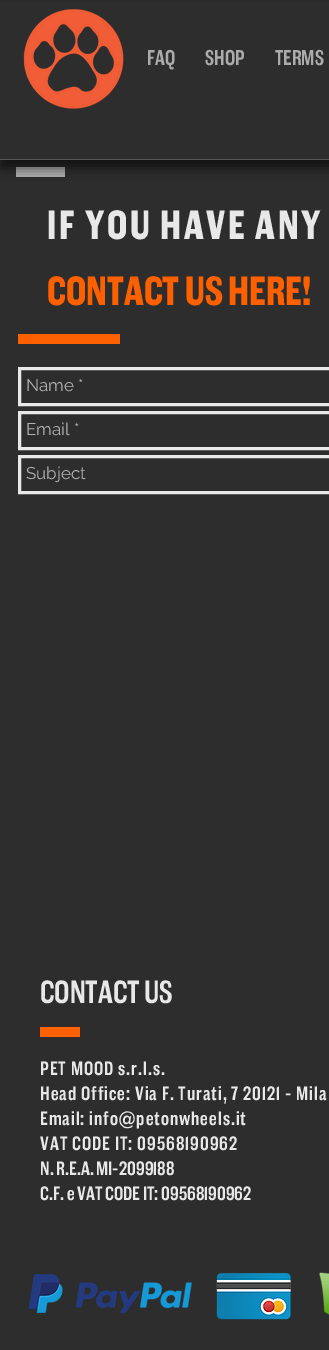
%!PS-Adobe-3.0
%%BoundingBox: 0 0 329 1350
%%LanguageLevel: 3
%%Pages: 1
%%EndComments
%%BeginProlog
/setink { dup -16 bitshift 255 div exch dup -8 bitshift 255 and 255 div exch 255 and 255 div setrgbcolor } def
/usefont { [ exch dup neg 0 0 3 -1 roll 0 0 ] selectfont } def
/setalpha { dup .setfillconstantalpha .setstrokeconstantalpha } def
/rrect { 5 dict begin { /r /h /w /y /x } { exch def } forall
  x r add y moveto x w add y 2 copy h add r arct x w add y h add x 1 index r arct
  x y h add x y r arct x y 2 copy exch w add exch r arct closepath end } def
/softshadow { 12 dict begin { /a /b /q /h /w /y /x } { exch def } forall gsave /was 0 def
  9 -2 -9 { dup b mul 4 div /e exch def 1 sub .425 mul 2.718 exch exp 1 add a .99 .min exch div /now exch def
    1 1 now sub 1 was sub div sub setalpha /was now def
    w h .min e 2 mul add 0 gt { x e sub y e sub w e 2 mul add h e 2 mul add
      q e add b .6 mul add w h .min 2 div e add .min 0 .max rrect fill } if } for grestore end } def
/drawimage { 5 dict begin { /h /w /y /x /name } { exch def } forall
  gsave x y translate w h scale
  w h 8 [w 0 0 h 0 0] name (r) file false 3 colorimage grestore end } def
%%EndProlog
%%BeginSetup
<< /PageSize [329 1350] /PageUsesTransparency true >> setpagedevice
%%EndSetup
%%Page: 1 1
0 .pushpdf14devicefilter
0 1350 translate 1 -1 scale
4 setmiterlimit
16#2D2D2D setink
0 0 329 1350 rectfill
16#ABABAB setink
16 167 49 10 rectfill
16#000000 setink
0 8 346 160 0 5.5 0.6 softshadow
16#2D2D2D setink
0 1 329 158 rectfill
16#575757 setink
0 159 329 1 rectfill
(img1.raw) 23 9 101 100 drawimage
/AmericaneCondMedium-Medium 22 usefont
16#ABABAB setink
[
    [(FAQ) 147 65]
    [(SHOP) 205 65]
    [(TERMS) 275 65]
] { aload pop moveto show } forall
/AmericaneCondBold-Bold 42 usefont
16#E8E8E8 setink
47 239 moveto 2.5 0 (IF YOU HAVE ANY) ashow
16#FC6000 setink
47 305 moveto (CONTACT US HERE!) show
18 334 102 10 rectfill
16#E8E8E8 setink
3 setlinewidth
19.5 368.5 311 36 rectstroke
/Raleway-Regular 17 usefont
16#B1B1B1 setink
26 391 moveto (Name *) show
16#E8E8E8 setink
19.5 412.5 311 36 rectstroke
16#B1B1B1 setink
26 435 moveto (Email *) show
16#E8E8E8 setink
19.5 456.5 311 36 rectstroke
16#B1B1B1 setink
26 479 moveto (Subject) show
/AmericaneCondMedium-Medium 33 usefont
16#E8E8E8 setink
40 1003 moveto (CONTACT US) show
16#FC6000 setink
40 1027 40 10 rectfill
/AmericaneCondMedium-Medium 20 usefont
16#E8E8E8 setink
40 1075 moveto 1 0 (PET MOOD s.r.l.s.) ashow
40 1100 moveto 1 0 (Head Office: Via F. Turati, 7 20121 - Mila) ashow
40 1125 moveto 1 0 (Email: info@petonwheels.it) ashow
40 1150 moveto 1 0 (VAT CODE IT: 09568190962) ashow
40 1175 moveto (N. R.E.A. MI-2099188) show
40 1200 moveto (C.F. e VAT CODE IT: 09568190962) show
(img2.raw) 28 1272 301 48 drawimage
.poppdf14devicefilter showpage
%%EOF
